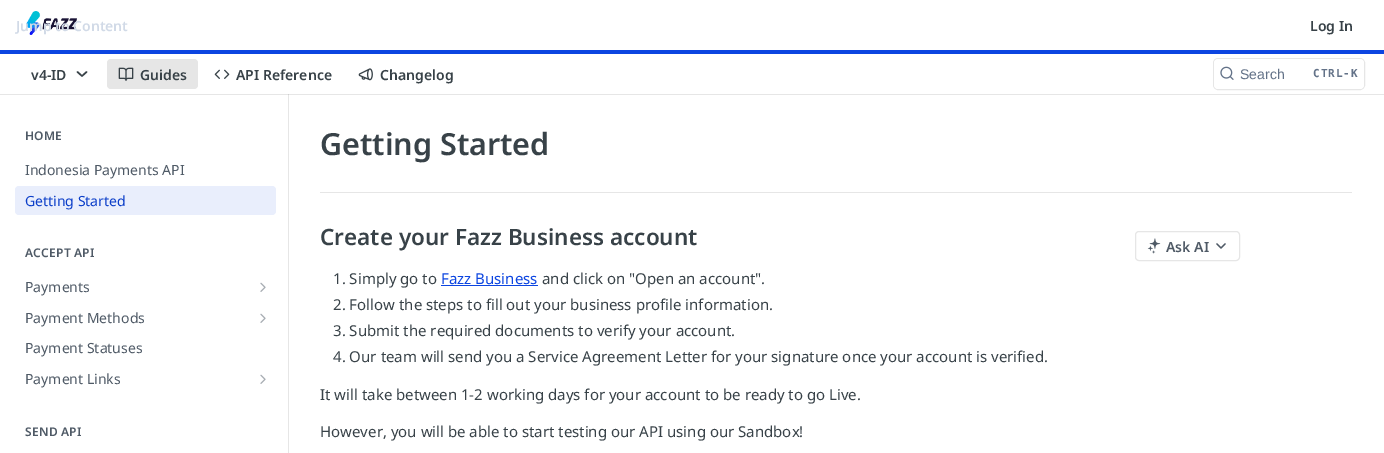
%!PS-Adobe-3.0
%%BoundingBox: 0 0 1384 453
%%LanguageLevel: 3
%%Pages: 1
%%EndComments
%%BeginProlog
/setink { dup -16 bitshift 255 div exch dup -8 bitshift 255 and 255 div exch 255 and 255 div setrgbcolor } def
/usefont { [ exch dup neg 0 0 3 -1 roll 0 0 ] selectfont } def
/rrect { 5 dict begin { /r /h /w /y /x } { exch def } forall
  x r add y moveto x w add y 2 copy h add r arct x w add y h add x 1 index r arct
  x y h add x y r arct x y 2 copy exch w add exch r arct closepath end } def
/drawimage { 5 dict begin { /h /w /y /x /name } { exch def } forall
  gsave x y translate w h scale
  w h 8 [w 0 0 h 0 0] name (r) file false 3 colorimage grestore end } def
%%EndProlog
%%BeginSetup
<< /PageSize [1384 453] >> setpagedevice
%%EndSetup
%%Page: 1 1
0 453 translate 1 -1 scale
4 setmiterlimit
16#FFFFFF setink
0 0 1384 453 rectfill
16#E6E6E6 setink
0 94 1384 1 rectfill
16#0C45E1 setink
0 50 1384 4 rectfill
(img1.raw) 26 11 51 24 drawimage
/NotoSans-SemiBold 14 usefont
16#D1DAE7 setink
16 31 moveto (Jump to Content) show
16#384248 setink
1310 31 moveto (Log In) show
31 80 moveto (v4-ID) show
1.5 setlinewidth
1 setlinecap
1 setlinejoin
77.5 72 moveto 82 76 lineto 86.5 72 lineto stroke
16#E6E6E6 setink
107 59 91 30 4 rrect fill
(img2.raw) 118 67 16 14 drawimage
16#384248 setink
140 80 moveto (Guides) show
(img3.raw) 214 69 16 10 drawimage
236 80 moveto (API Reference) show
(img4.raw) 358 68 15 13 drawimage
380 80 moveto (Changelog) show
16#E6E6E6 setink
1 setlinewidth
0 setlinecap
0 setlinejoin
1213.5 58.5 151 31 4.5 rrect stroke
16#FFFFFF setink
1214 59 150 30 4 rrect fill
(img5.raw) 1220 66 14 14 drawimage
/LiberationSans-Regular 14 usefont
16#637288 setink
1240 79 moveto (Search) show
/DejaVuSansMono-Bold 11 usefont
1313 77 moveto 1 0 (CTRL-K) ashow
16#E6E6E6 setink
288 94 1 359 rectfill
16#CFCFCF setink
288 94 1 1 rectfill
/NotoSans-SemiBold 12 usefont
16#4F5A66 setink
25 140 moveto 0.25 0 (HOME) ashow
/NotoSans-Regular 14 usefont
25 175 moveto (Indonesia Payments API) show
16#E9EEFC setink
15 186 261 29 4 rrect fill
16#0B3EC9 setink
25 206 moveto (Getting Started) show
/NotoSans-SemiBold 12 usefont
16#4F5A66 setink
25 257 moveto 0.25 0 (ACCEPT API) ashow
/NotoSans-Regular 14 usefont
25 292 moveto (Payments) show
(img6.raw) 260 282 6 10 drawimage
25 323 moveto (Payment Methods) show
(img6.raw) 260 313 6 10 drawimage
25 353 moveto (Payment Statuses) show
25 384 moveto (Payment Links) show
(img6.raw) 260 374 6 10 drawimage
/NotoSans-SemiBold 12 usefont
25 436 moveto 0.25 0 (SEND API) ashow
16#E6E6E6 setink
320 192 1032 1 rectfill
/NotoSans-SemiBold 30.5 usefont
16#384248 setink
320 155 moveto (Getting Started) show
/NotoSans-SemiBold 22.5 usefont
320 245 moveto (Create your Fazz Business account) show
/NotoSans-Regular 15 usefont
333 284 moveto (1. Simply go to) show
16#0C45E1 setink
441 284 moveto (Fazz Business) show
441 285 97 1 rectfill
16#384248 setink
[
    [(and click on "Open an account".) 542 284]
    [(2. Follow the steps to fill out your business profile information.) 333 310]
    [(3. Submit the required documents to verify your account.) 333 336]
    [(4. Our team will send you a Service Agreement Letter for your signature once your account is verified.) 333 362]
    [(It will take between 1-2 working days for your account to be ready to go Live.) 320 400]
    [(However, you will be able to start testing our API using our Sandbox!) 320 437]
] { aload pop moveto show } forall
16#E6E6E6 setink
1135.5 231.5 104 29 3.5 rrect stroke
(img7.raw) 1147 238 14 16 drawimage
/NotoSans-SemiBold 14 usefont
16#4F5A66 setink
1166 252 moveto (Ask AI) show
1.3 setlinewidth
1 setlinecap
1 setlinejoin
1217 244 moveto 1221 248 lineto 1225 244 lineto stroke
showpage
%%EOF
